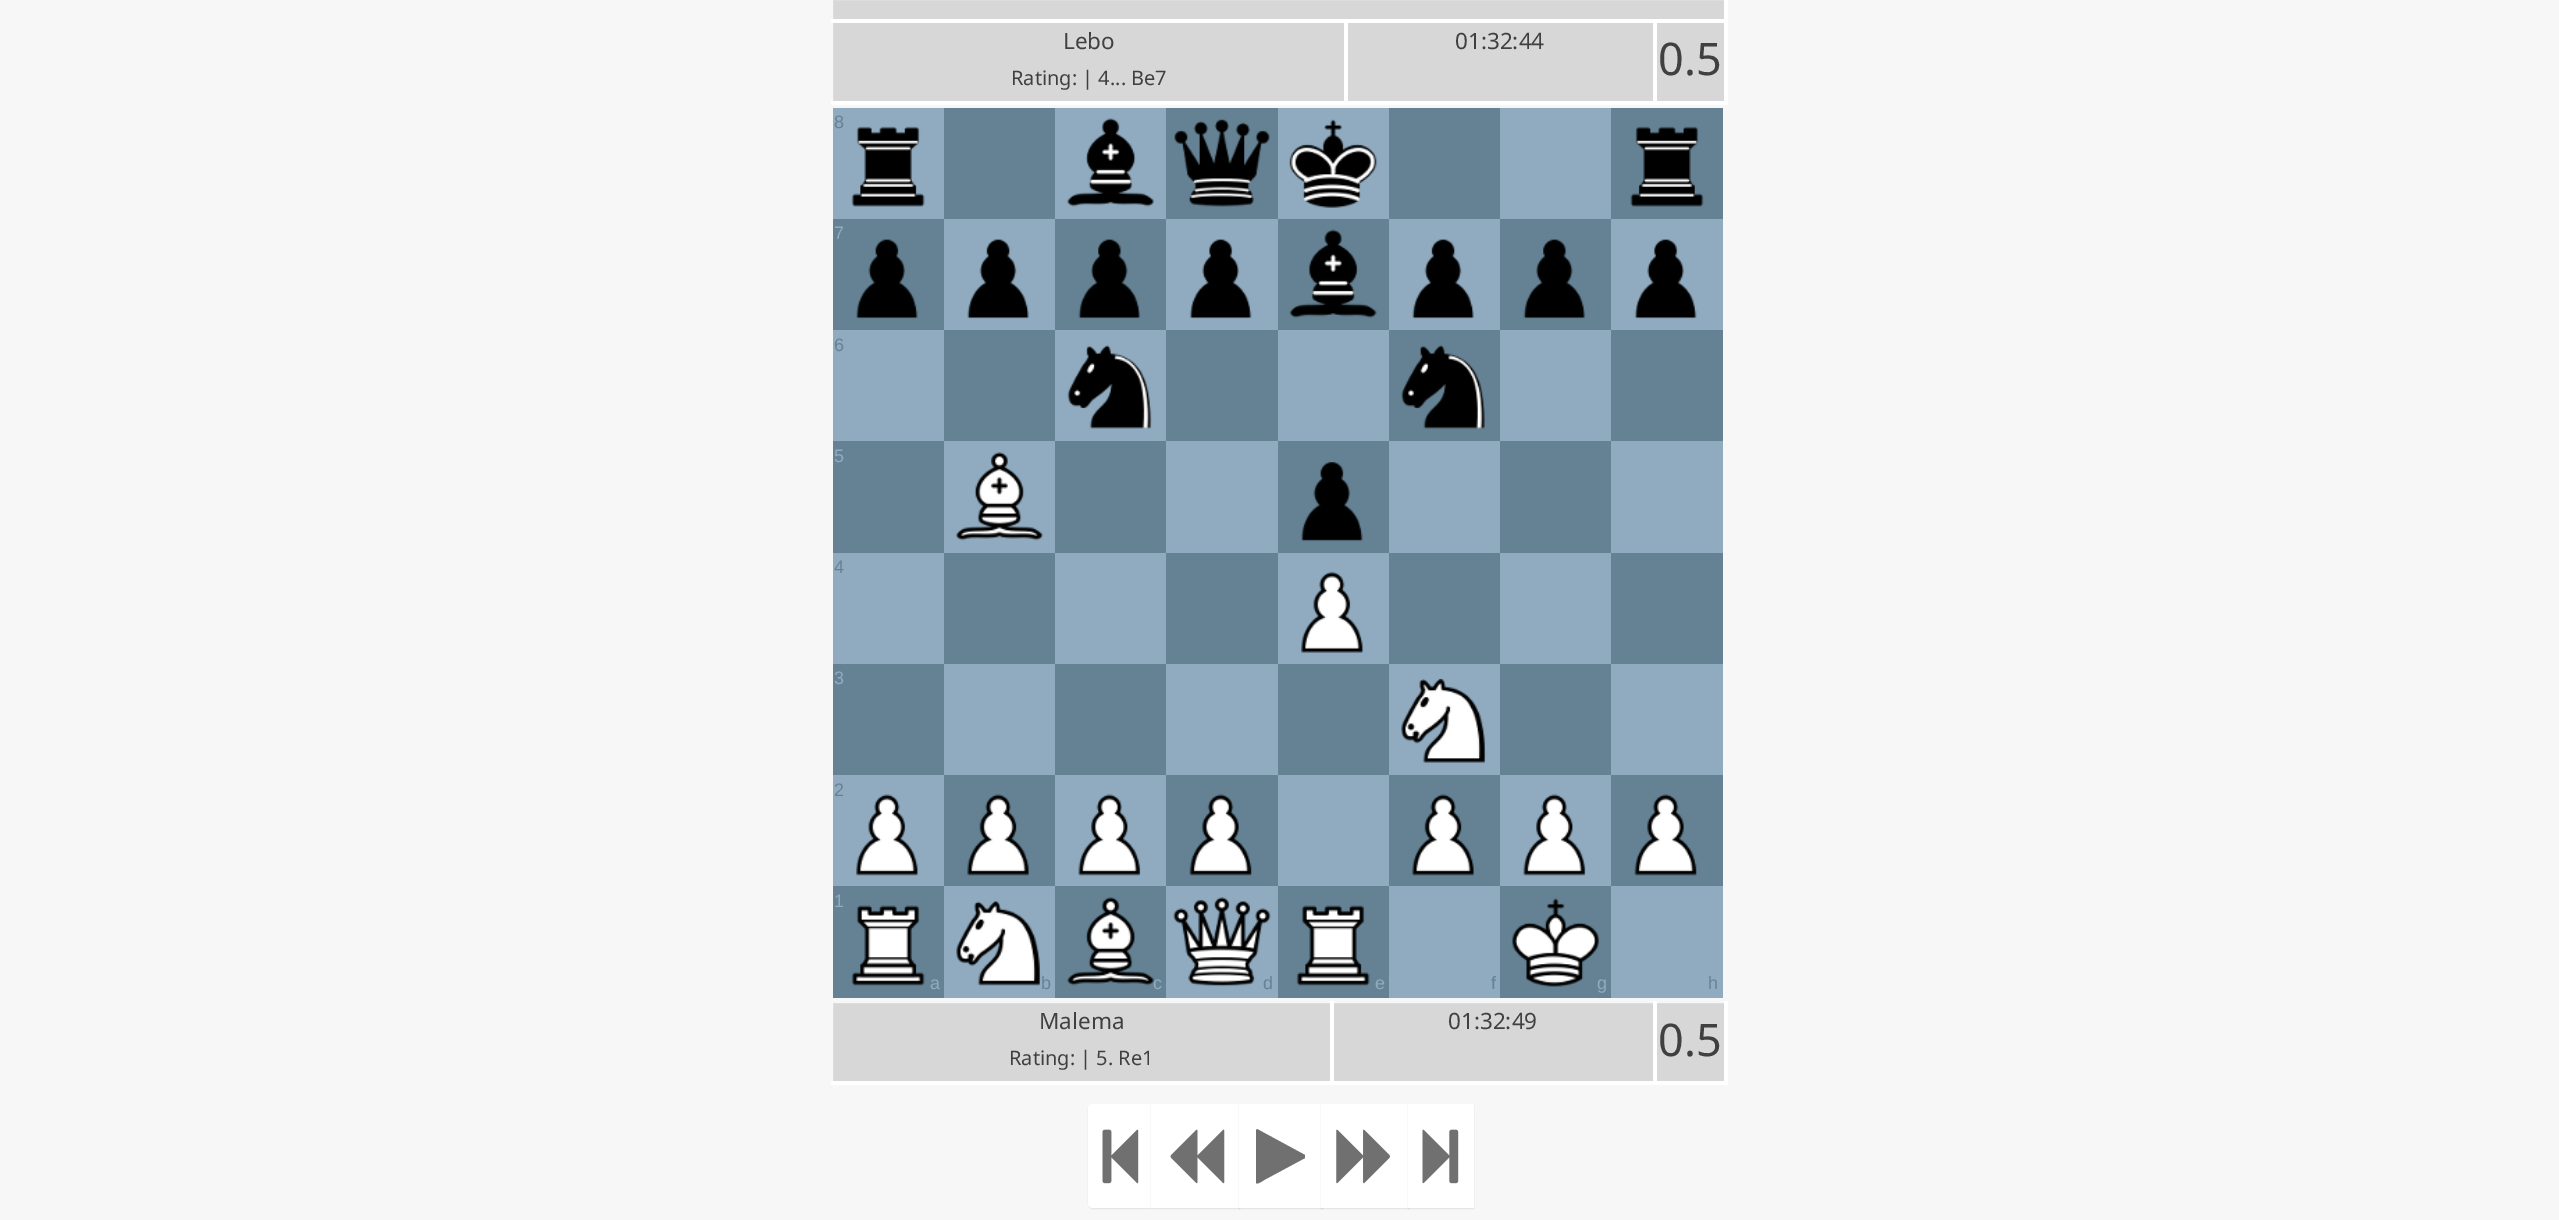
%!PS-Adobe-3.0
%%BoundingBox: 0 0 2559 1220
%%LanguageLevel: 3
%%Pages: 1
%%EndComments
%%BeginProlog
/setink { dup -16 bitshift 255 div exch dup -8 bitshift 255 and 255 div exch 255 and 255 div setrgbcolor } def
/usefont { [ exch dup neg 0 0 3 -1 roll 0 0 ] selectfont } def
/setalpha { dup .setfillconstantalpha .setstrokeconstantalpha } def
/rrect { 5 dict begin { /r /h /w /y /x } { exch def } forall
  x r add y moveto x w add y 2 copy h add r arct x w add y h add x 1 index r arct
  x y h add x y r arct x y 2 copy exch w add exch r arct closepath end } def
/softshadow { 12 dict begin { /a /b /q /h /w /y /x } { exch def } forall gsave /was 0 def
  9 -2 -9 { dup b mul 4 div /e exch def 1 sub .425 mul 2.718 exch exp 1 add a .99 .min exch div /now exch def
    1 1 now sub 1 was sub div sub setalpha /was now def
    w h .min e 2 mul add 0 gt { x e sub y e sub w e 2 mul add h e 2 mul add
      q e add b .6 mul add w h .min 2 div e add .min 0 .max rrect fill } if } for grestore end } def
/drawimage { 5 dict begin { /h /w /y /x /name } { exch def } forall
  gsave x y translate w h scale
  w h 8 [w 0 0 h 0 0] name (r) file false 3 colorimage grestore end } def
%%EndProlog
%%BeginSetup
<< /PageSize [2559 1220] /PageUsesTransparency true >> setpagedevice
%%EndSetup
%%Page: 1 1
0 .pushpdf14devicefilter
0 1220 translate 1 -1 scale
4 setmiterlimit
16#F7F7F7 setink
0 0 2559 1220 rectfill
[
    [834 1 890 100 16#D7D7D7]
    [833 0 895 1 16#DDDDDD]
    [833 0 1 105 16#DDDDDD]
    [1724 0 4 105 16#FFFFFF]
    [1653 101 75 4 16#FFFFFF]
    [1653 19 4 86 16#FFFFFF]
    [1344 101 312 4 16#FFFFFF]
    [1344 19 4 86 16#FFFFFF]
    [831 19 897 4 16#FFFFFF]
    [831 101 517 4 16#FFFFFF]
] { aload pop setink rectfill } forall
/NotoSans-Regular 22.5 usefont
16#404040 setink
1063 49 moveto (Lebo) show
/NotoSans-Regular 20 usefont
1011 85 moveto (Rating: | 4... Be7) show
/NotoSans-Regular 22.5 usefont
1455 49 moveto (01:32:44) show
/NotoSans-Regular 45 usefont
1658 75 moveto (0.5) show
16#90ABC0 setink
833 108 111 111 rectfill
/LiberationSans-Regular 18 usefont
16#658294 setink
834 128 moveto (8) show
(img1.raw) 851 126 74 81 drawimage
944 108 111 111 rectfill
16#90ABC0 setink
1055 108 111 111 rectfill
(img2.raw) 1067 118 87 89 drawimage
16#658294 setink
1166 108 112 111 rectfill
(img3.raw) 1174 119 96 88 drawimage
16#90ABC0 setink
1278 108 111 111 rectfill
(img4.raw) 1289 119 89 89 drawimage
[
    [1389 108 111 111 16#658294]
    [1500 108 111 111 16#90ABC0]
    [1611 108 112 111 16#658294]
] { aload pop setink rectfill } forall
(img5.raw) 1630 126 74 81 drawimage
833 219 111 111 rectfill
16#90ABC0 setink
834 239 moveto (7) show
(img6.raw) 856 239 62 80 drawimage
944 219 111 111 rectfill
(img7.raw) 967 239 62 80 drawimage
16#658294 setink
1055 219 111 111 rectfill
(img8.raw) 1078 239 63 80 drawimage
16#90ABC0 setink
1166 219 112 111 rectfill
(img9.raw) 1189 239 63 80 drawimage
16#658294 setink
1278 219 111 111 rectfill
(img10.raw) 1289 229 88 89 drawimage
16#90ABC0 setink
1389 219 111 111 rectfill
(img7.raw) 1412 239 62 80 drawimage
16#658294 setink
1500 219 111 111 rectfill
(img11.raw) 1523 239 63 80 drawimage
16#90ABC0 setink
1611 219 112 111 rectfill
(img9.raw) 1634 239 63 80 drawimage
833 330 111 111 rectfill
16#658294 setink
834 351 moveto (6) show
944 330 111 111 rectfill
16#90ABC0 setink
1055 330 111 111 rectfill
(img12.raw) 1067 345 85 84 drawimage
[
    [1166 330 112 111 16#658294]
    [1278 330 111 111 16#90ABC0]
    [1389 330 111 111 16#658294]
] { aload pop setink rectfill } forall
(img13.raw) 1401 345 84 84 drawimage
[
    [1500 330 111 111 16#90ABC0]
    [1611 330 112 111 16#658294]
    [833 441 111 112 16#658294]
] { aload pop setink rectfill } forall
16#90ABC0 setink
834 462 moveto (5) show
944 441 111 112 rectfill
(img14.raw) 956 452 87 89 drawimage
[
    [1055 441 111 112 16#658294]
    [1166 441 112 112 16#90ABC0]
    [1278 441 111 112 16#658294]
] { aload pop setink rectfill } forall
(img15.raw) 1301 462 62 80 drawimage
[
    [1389 441 111 112 16#90ABC0]
    [1500 441 111 112 16#658294]
    [1611 441 112 112 16#90ABC0]
    [833 553 111 111 16#90ABC0]
] { aload pop setink rectfill } forall
16#658294 setink
834 573 moveto (4) show
[
    [944 553 111 111 16#658294]
    [1055 553 111 111 16#90ABC0]
    [1166 553 112 111 16#658294]
    [1278 553 111 111 16#90ABC0]
] { aload pop setink rectfill } forall
(img16.raw) 1301 571 62 82 drawimage
[
    [1389 553 111 111 16#658294]
    [1500 553 111 111 16#90ABC0]
    [1611 553 112 111 16#658294]
    [833 664 111 111 16#658294]
] { aload pop setink rectfill } forall
16#90ABC0 setink
834 684 moveto (3) show
[
    [944 664 111 111 16#90ABC0]
    [1055 664 111 111 16#658294]
    [1166 664 112 111 16#90ABC0]
    [1278 664 111 111 16#658294]
    [1389 664 111 111 16#90ABC0]
] { aload pop setink rectfill } forall
(img17.raw) 1401 678 85 85 drawimage
[
    [1500 664 111 111 16#658294]
    [1611 664 112 111 16#90ABC0]
    [833 775 111 111 16#90ABC0]
] { aload pop setink rectfill } forall
16#658294 setink
834 796 moveto (2) show
(img18.raw) 856 794 62 82 drawimage
944 775 111 111 rectfill
(img19.raw) 967 794 62 82 drawimage
16#90ABC0 setink
1055 775 111 111 rectfill
(img20.raw) 1078 794 63 82 drawimage
16#658294 setink
1166 775 112 111 rectfill
(img21.raw) 1189 794 63 82 drawimage
16#90ABC0 setink
1278 775 111 111 rectfill
16#658294 setink
1389 775 111 111 rectfill
(img19.raw) 1412 794 62 82 drawimage
16#90ABC0 setink
1500 775 111 111 rectfill
(img22.raw) 1523 794 63 82 drawimage
16#658294 setink
1611 775 112 111 rectfill
(img21.raw) 1634 794 63 82 drawimage
833 886 111 112 rectfill
16#90ABC0 setink
834 907 moveto (1) show
(img23.raw) 851 905 74 81 drawimage
930 989 moveto (a) show
944 886 111 112 rectfill
(img24.raw) 956 901 85 85 drawimage
16#658294 setink
1041 989 moveto (b) show
1055 886 111 112 rectfill
(img25.raw) 1067 897 87 89 drawimage
16#90ABC0 setink
1153 989 moveto (c) show
1166 886 112 112 rectfill
(img26.raw) 1173 897 98 90 drawimage
16#658294 setink
1263 989 moveto (d) show
1278 886 111 112 rectfill
(img23.raw) 1296 905 74 81 drawimage
16#90ABC0 setink
1375 989 moveto (e) show
1389 886 111 112 rectfill
16#658294 setink
1491 989 moveto (f) show
1500 886 111 112 rectfill
(img27.raw) 1511 898 89 89 drawimage
16#90ABC0 setink
1597 989 moveto (g) show
1611 886 112 112 rectfill
16#658294 setink
1708 989 moveto (h) show
[
    [834 1004 890 77 16#D7D7D7]
    [833 1003 895 1 16#DDDDDD]
    [833 1003 1 82 16#DDDDDD]
    [1724 1001 4 84 16#FFFFFF]
    [1653 1081 75 4 16#FFFFFF]
    [1653 1001 4 84 16#FFFFFF]
    [1330 1081 326 4 16#FFFFFF]
    [1330 1001 4 84 16#FFFFFF]
    [831 1081 503 4 16#FFFFFF]
] { aload pop setink rectfill } forall
/NotoSans-Regular 22.5 usefont
16#404040 setink
1039 1029 moveto (Malema) show
/NotoSans-Regular 20 usefont
1009 1065 moveto (Rating: | 5. Re1) show
/NotoSans-Regular 22.5 usefont
1448 1029 moveto (01:32:49) show
/NotoSans-Regular 45 usefont
1658 1056 moveto (0.5) show
16#000000 setink
1088 1105 65 104 5 0.5 0.07 softshadow
16#FFFFFF setink
1093 1104 moveto 1153 1104 lineto 1153 1208 lineto 1093 1208 lineto 1090 1208 1088 1206 1088 1203 curveto 1088 1109 lineto 1088 1106 1090 1104 1093 1104 curveto closepath fill
(img28.raw) 1102 1129 37 55 drawimage
16#000000 setink
1151 1105 89 104 0 0.5 0.07 softshadow
16#FFFFFF setink
1151 1104 88 104 rectfill
(img29.raw) 1170 1129 55 55 drawimage
16#000000 setink
1239 1105 84 104 0 0.5 0.07 softshadow
16#FFFFFF setink
1239 1104 82 104 rectfill
16#707070 setink
1305 1158 moveto 1266 1179 lineto 1265 1179 1258 1185 1256 1183 curveto 1256 1130 lineto 1257 1129 lineto 1305 1155 lineto 1305 1156 lineto closepath fill
16#000000 setink
1321 1105 88 104 0 0.5 0.07 softshadow
16#FFFFFF setink
1321 1104 87 104 rectfill
(img30.raw) 1336 1129 54 55 drawimage
16#000000 setink
1408 1105 66 104 0 0.5 0.07 softshadow
16#FFFFFF setink
1408 1104 66 104 rectfill
(img31.raw) 1422 1129 37 55 drawimage
.poppdf14devicefilter showpage
%%EOF
